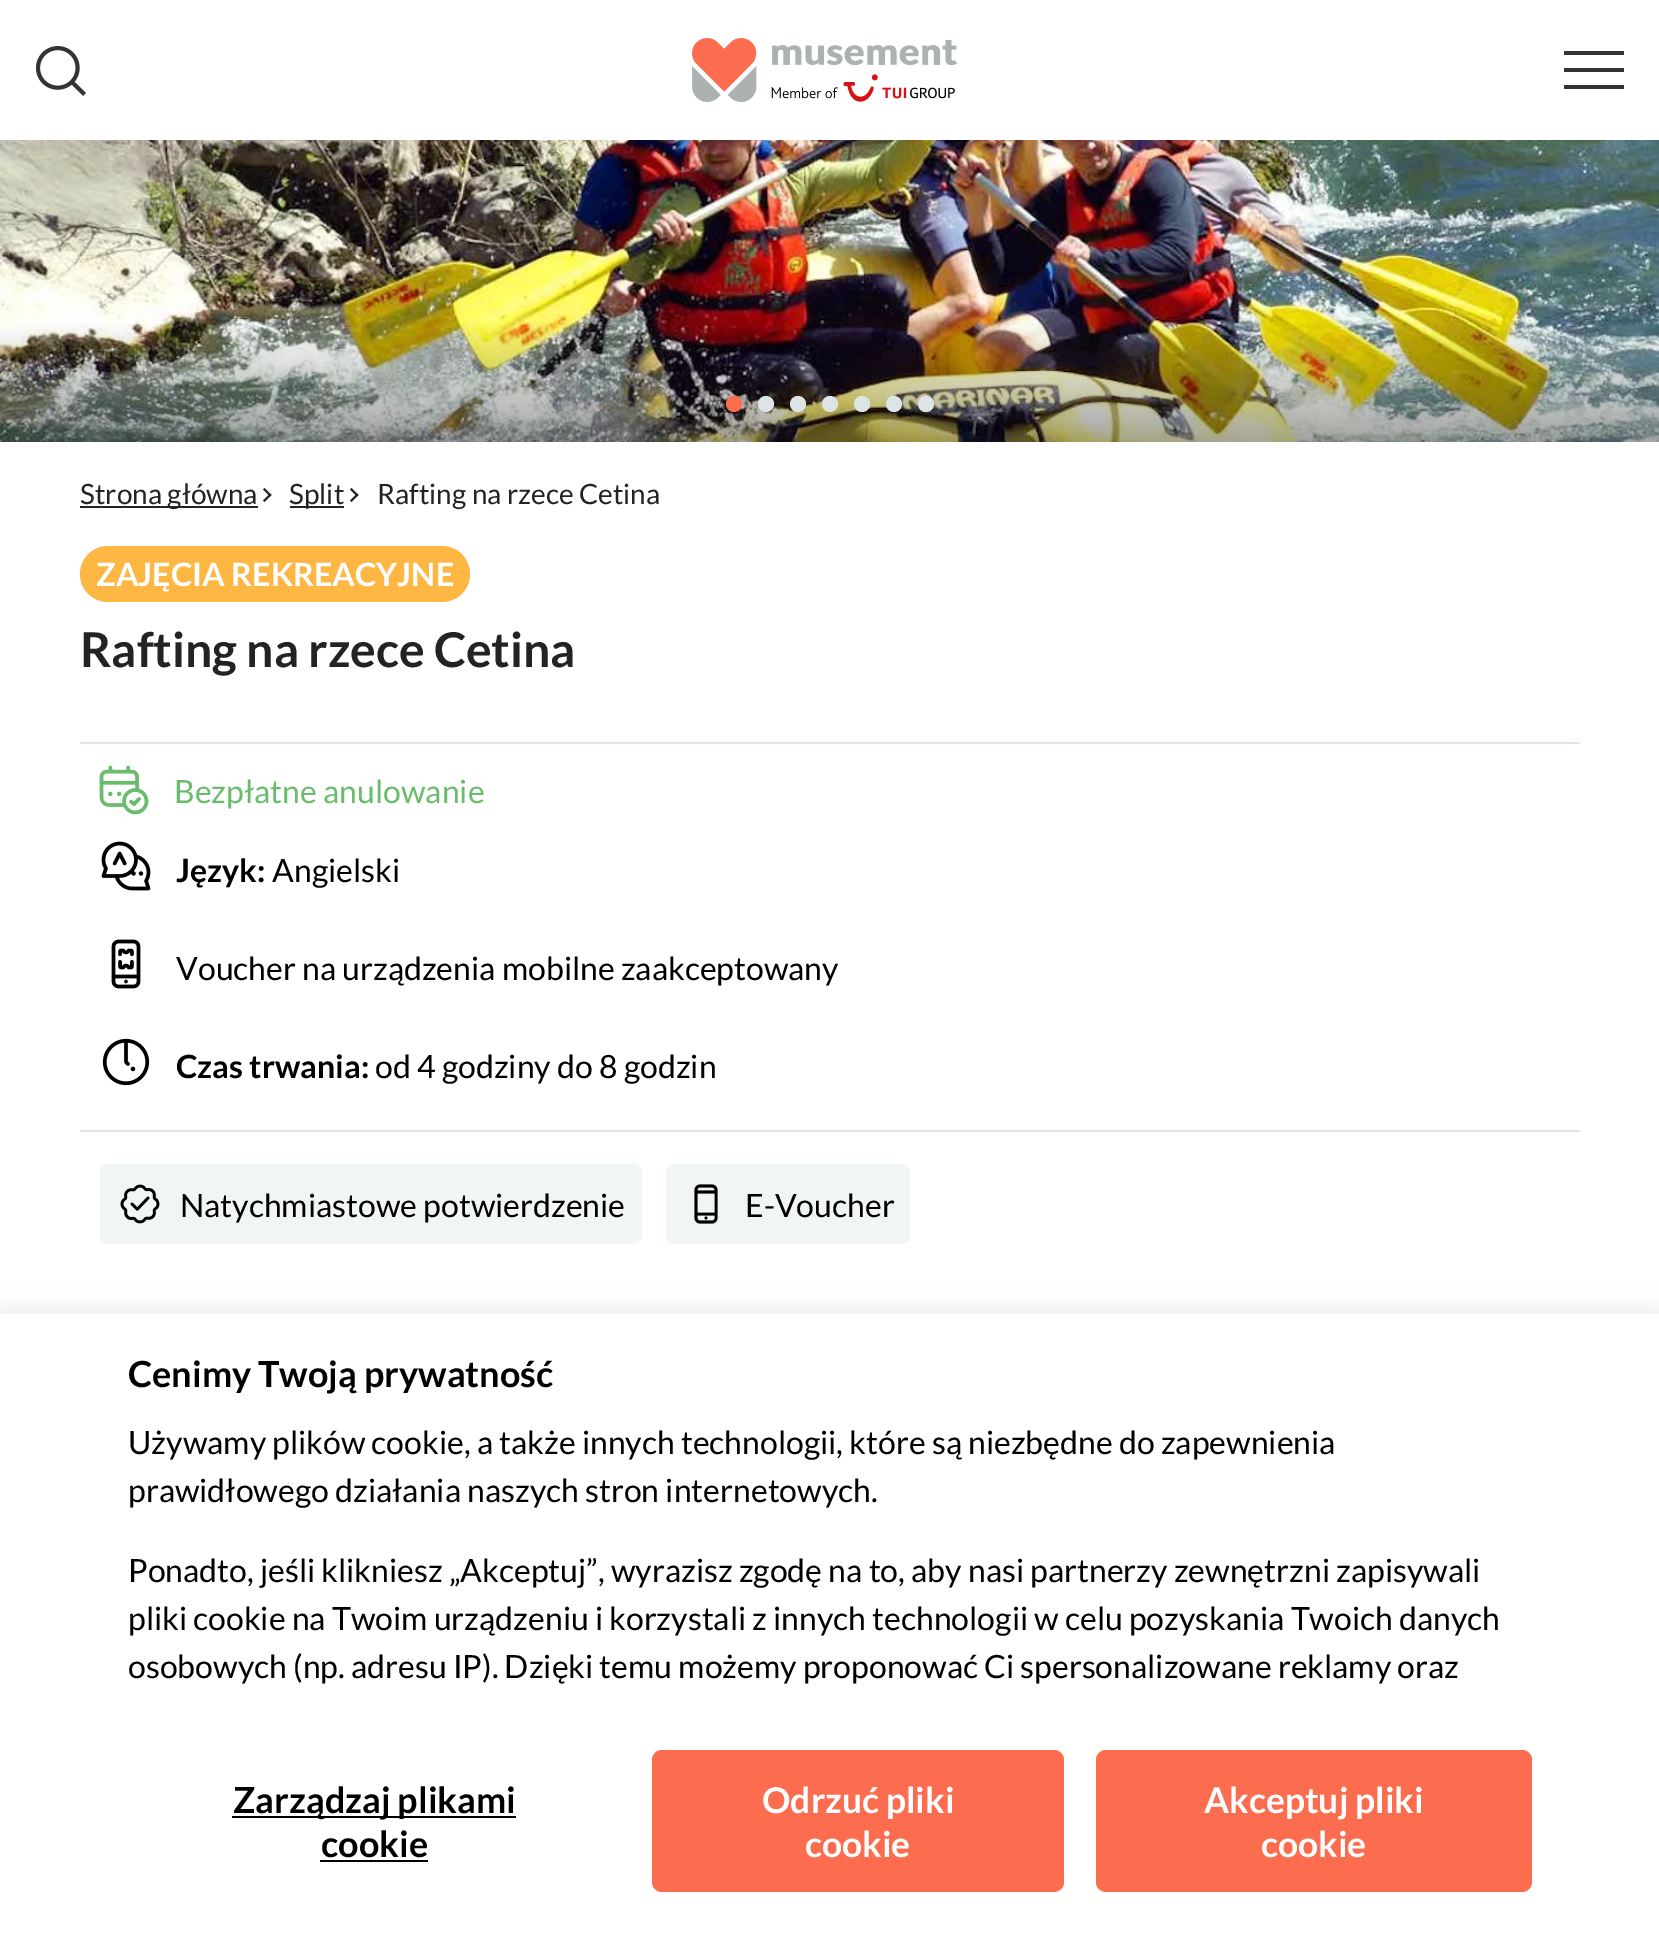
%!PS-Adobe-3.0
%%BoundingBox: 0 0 1659 1939
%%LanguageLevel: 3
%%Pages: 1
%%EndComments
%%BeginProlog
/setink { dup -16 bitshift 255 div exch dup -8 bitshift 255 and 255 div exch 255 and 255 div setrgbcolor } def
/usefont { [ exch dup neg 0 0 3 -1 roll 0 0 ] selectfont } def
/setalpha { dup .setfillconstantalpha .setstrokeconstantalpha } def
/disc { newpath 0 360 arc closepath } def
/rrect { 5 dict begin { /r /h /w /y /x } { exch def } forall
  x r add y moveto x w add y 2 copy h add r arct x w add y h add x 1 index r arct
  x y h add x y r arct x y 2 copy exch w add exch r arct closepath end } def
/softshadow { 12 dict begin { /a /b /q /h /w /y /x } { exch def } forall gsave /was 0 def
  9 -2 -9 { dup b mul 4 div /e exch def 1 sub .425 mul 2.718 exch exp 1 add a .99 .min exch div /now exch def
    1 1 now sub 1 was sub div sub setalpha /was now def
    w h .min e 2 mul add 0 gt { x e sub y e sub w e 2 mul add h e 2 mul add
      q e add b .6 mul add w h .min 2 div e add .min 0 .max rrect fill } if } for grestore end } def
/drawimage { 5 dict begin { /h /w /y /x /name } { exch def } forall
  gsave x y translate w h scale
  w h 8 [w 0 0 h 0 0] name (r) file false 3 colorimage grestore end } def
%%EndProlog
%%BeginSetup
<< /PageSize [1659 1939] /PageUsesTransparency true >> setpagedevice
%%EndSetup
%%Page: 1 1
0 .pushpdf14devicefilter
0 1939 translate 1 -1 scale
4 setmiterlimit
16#FFFFFF setink
0 0 1659 1939 rectfill
(img1.raw) 36 46 50 50 drawimage
(img2.raw) 692 38 265 64 drawimage
[
    [1564 51 60 4 16#333333]
    [1564 68 60 4 16#333333]
    [1564 85 60 4 16#333333]
] { aload pop setink rectfill } forall
(img3.raw) 0 140 1659 302 drawimage
16#FC6C4F setink
734 404 8 disc fill
16#DCE4E6 setink
766 404 8 disc fill
798 404 8 disc fill
830 404 8 disc fill
862 404 8 disc fill
894 404 8 disc fill
926 404 8 disc fill
16#232323 setink
80 506 178 2 rectfill
/Lato-Regular 28 usefont
80 504 moveto (Strona główna) show
263 489.5 moveto 264.5 488 lineto 271.5 495 lineto 270 496.5 lineto closepath fill
263 500.5 moveto 270 493.5 lineto 271.5 495 lineto 264.5 502 lineto closepath fill
290 506 54 2 rectfill
289 504 moveto (Split) show
350 489.5 moveto 351.5 488 lineto 358.5 495 lineto 357 496.5 lineto closepath fill
350 500.5 moveto 357 493.5 lineto 358.5 495 lineto 351.5 502 lineto closepath fill
377 504 moveto (Rafting na rzece Cetina) show
16#FFB743 setink
80 546 390 56 28 rrect fill
/Lato-Bold 32 usefont
16#FFFFFF setink
96 586 moveto (ZAJĘCIA REKREACYJNE) show
/Lato-Bold 48 usefont
16#232323 setink
80 667 moveto (Rafting na rzece Cetina) show
16#DCE4E6 setink
80 742 1500 2 rectfill
80 1130 1500 2 rectfill
(img4.raw) 99 765 50 50 drawimage
/Lato-Regular 32 usefont
16#69BC6B setink
174 803 moveto (Bezpłatne anulowanie) show
(img5.raw) 101 841 50 50 drawimage
/Lato-Bold 32 usefont
16#000000 setink
176 882 moveto (Język:) show
/Lato-Regular 32 usefont
272 882 moveto (Angielski) show
(img6.raw) 111 939 30 50 drawimage
176 980 moveto (Voucher na urządzenia mobilne zaakceptowany) show
(img7.raw) 102 1038 48 48 drawimage
/Lato-Bold 32 usefont
176 1078 moveto (Czas trwania:) show
/Lato-Regular 32 usefont
375 1078 moveto (od 4 godziny do 8 godzin) show
16#F2F5F6 setink
100 1164 542 80 8 rrect fill
(img8.raw) 120 1184 40 40 drawimage
16#000000 setink
180 1217 moveto (Natychmiastowe potwierdzenie) show
16#F2F5F6 setink
666 1164 244 80 8 rrect fill
(img9.raw) 694 1184 24 40 drawimage
16#000000 setink
745 1217 moveto (E-Voucher) show
16#232323 setink
0 1318 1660 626 0 15 0.15 softshadow
16#FFFFFF setink
0 1314 1659 625 rectfill
/Lato-Bold 36 usefont
16#000000 setink
128 1387 moveto (Cenimy Twoją prywatność) show
/Lato-Regular 32 usefont
[
    [(Używamy plików cookie, a także innych technologii, które są niezbędne do zapewnienia) 128 1454]
    [(prawidłowego działania naszych stron internetowych.) 128 1502]
    [(Ponadto, jeśli klikniesz „Akceptuj”, wyrazisz zgodę na to, aby nasi partnerzy zewnętrzni zapisywali) 128 1582]
    [(pliki cookie na Twoim urządzeniu i korzystali z innych technologii w celu pozyskania Twoich danych) 128 1630]
    [(osobowych \(np. adresu IP\). Dzięki temu możemy proponować Ci spersonalizowane reklamy oraz) 128 1678]
] { aload pop moveto show } forall
232 1816 284 2 rectfill
/Lato-Bold 36 usefont
233 1813 moveto (Zarządzaj plikami) show
321 1857 moveto (cookie) show
320 1860 108 2 rectfill
16#FC6C4F setink
652 1750 412 142 10 rrect fill
/Lato-Bold 35.5 usefont
16#FFFFFF setink
762 1813 moveto (Odrzuć pliki) show
805 1857 moveto (cookie) show
16#FC6C4F setink
1096 1750 436 142 10 rrect fill
16#FFFFFF setink
1204 1813 moveto (Akceptuj pliki) show
1261 1857 moveto (cookie) show
.poppdf14devicefilter showpage
%%EOF
